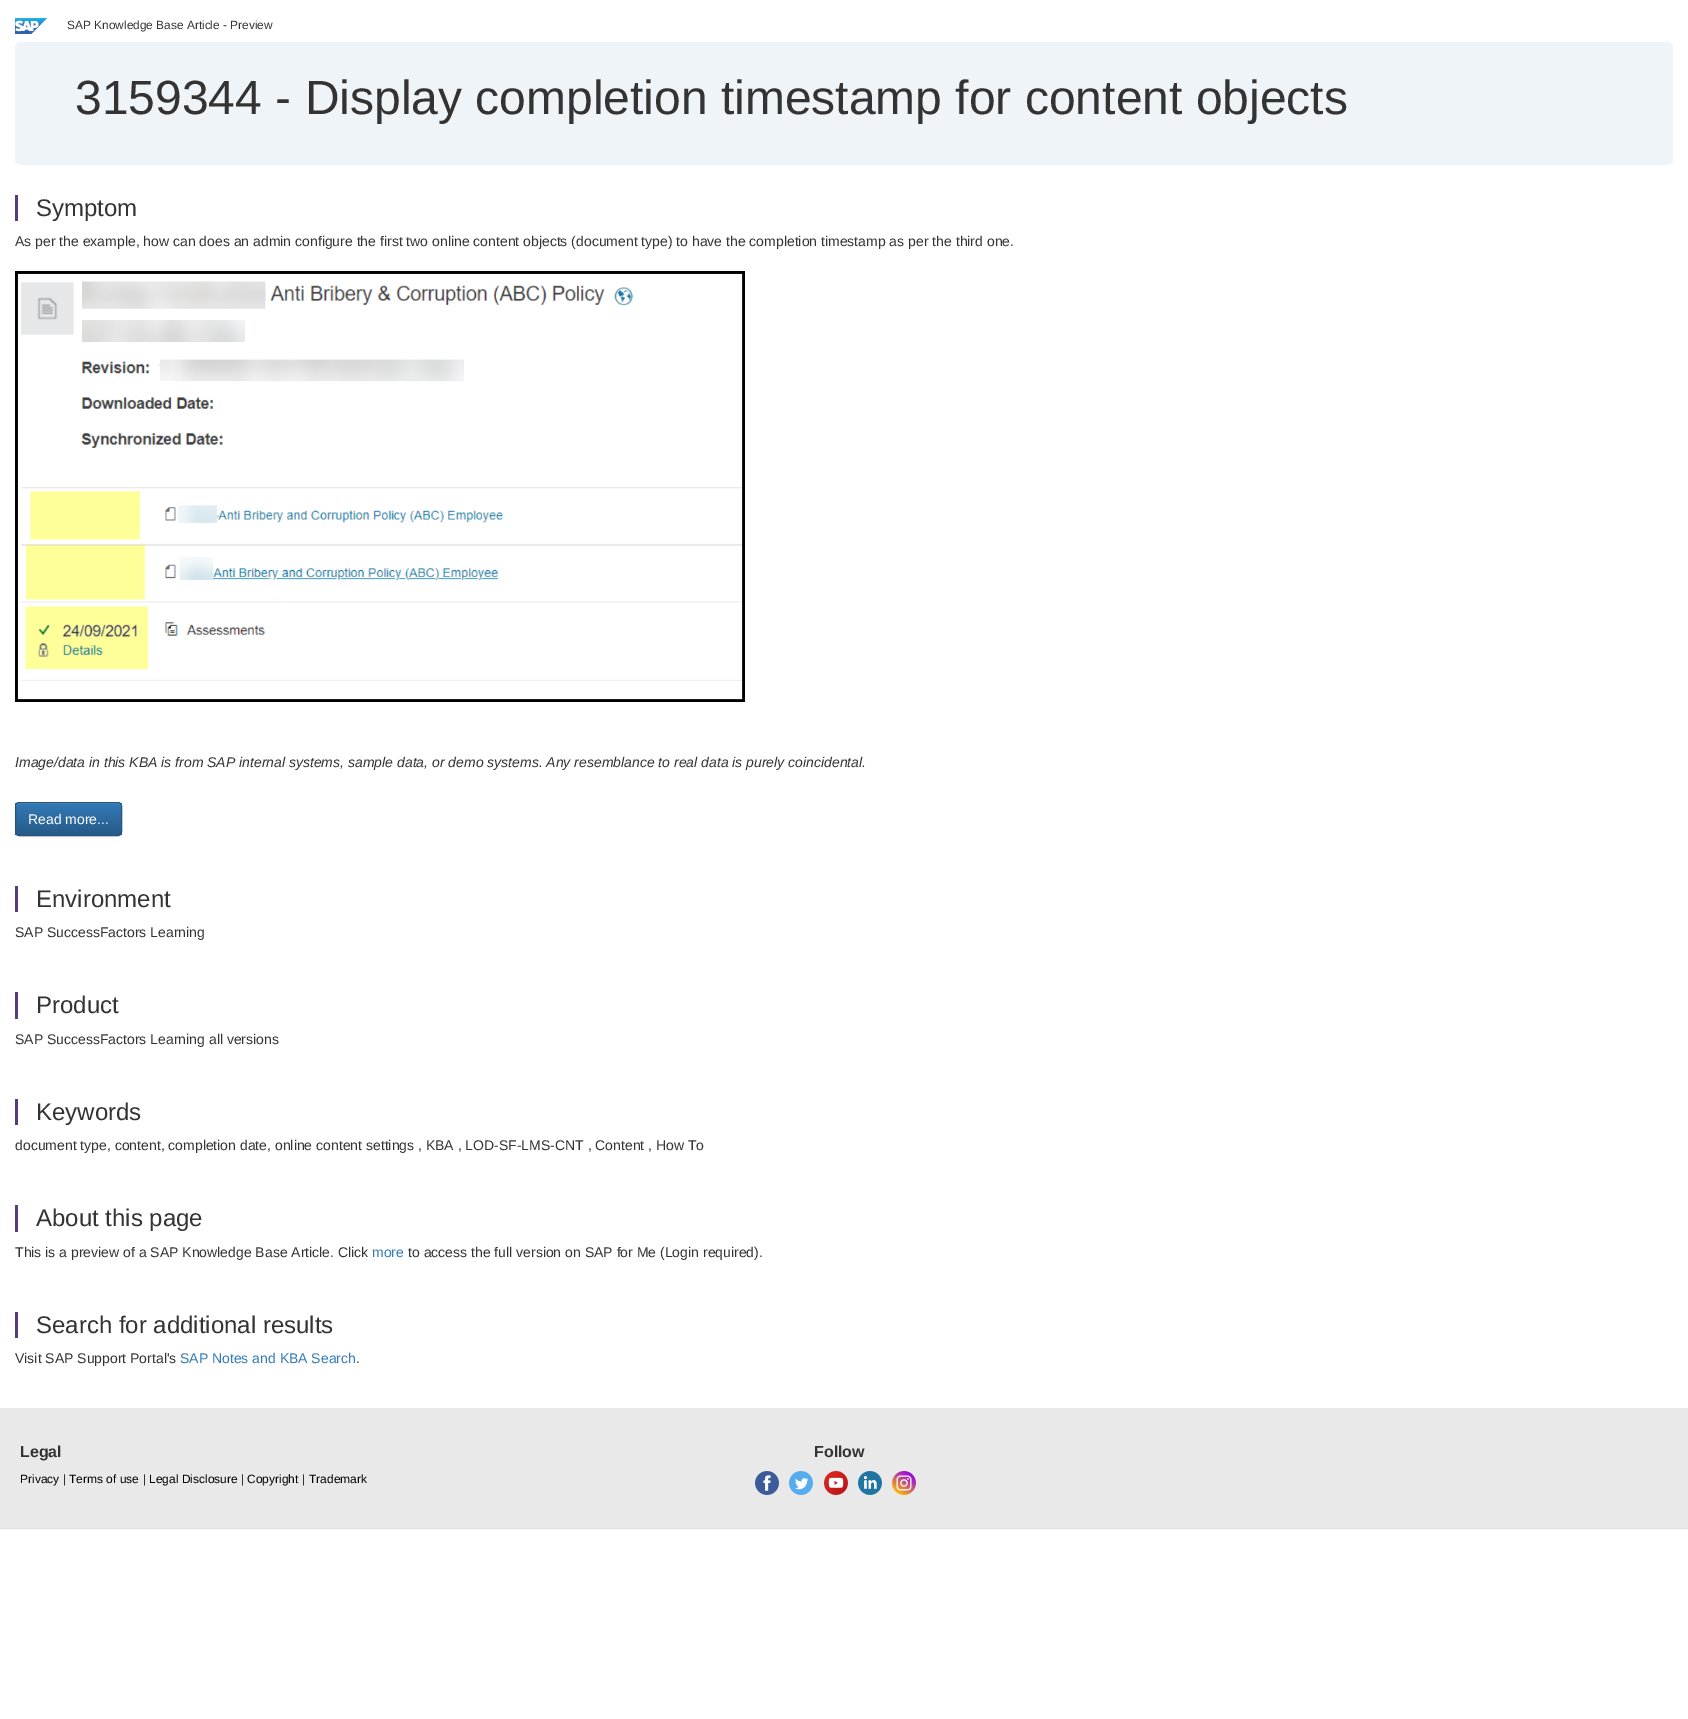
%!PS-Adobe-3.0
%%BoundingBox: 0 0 1688 1719
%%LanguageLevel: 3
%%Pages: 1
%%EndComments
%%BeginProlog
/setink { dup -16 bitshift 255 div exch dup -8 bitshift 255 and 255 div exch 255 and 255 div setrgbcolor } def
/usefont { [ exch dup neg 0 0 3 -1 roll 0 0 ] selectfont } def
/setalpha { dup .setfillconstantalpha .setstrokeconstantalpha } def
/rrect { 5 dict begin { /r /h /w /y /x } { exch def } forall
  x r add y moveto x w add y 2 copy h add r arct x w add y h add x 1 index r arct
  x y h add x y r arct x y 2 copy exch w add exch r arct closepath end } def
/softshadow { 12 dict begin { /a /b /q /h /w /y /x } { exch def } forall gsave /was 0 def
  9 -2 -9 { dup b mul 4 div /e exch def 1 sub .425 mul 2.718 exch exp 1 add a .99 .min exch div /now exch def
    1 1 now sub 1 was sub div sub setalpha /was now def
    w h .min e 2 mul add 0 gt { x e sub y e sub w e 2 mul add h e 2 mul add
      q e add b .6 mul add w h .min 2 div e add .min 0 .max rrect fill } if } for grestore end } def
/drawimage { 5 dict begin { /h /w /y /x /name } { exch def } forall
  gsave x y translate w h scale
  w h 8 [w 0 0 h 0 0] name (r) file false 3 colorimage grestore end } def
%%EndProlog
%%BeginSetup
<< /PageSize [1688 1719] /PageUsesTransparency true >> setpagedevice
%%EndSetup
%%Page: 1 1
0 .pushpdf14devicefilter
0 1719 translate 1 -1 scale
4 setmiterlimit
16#FFFFFF setink
0 0 1688 1719 rectfill
(img1.raw) 15 18 32 16 drawimage
/LiberationSans-Regular 11.9 usefont
16#333333 setink
67 29 moveto (SAP Knowledge Base Article - Preview) show
16#EFF4F9 setink
15 42 1658 123 6 rrect fill
/LiberationSans-Regular 48 usefont
16#333333 setink
75 114 moveto (3159344 - Display completion timestamp for content objects) show
16#563D7C setink
15 195 3 26 rectfill
/LiberationSans-Regular 24 usefont
16#333333 setink
36 216 moveto (Symptom) show
/LiberationSans-Regular 14 usefont
15 246 moveto (As per the example, how can does an admin configure the first two online content objects \(document type\) to have the completion timestamp as per the third one.) show
(img2.raw) 15 271 730 431 drawimage
/LiberationSans-Italic 14 usefont
15 767 moveto (Image/data in this KBA is from SAP internal systems, sample data, or demo systems. Any resemblance to real data is purely coincidental.) show
16#000000 setink
15 803 107 34 4 0.5 0.07 softshadow
gsave
15 802 107 34 4 rrect clip newpath
gsave 15 803 moveto 122 803 lineto 122 835 lineto 15 835 lineto closepath clip newpath
<< /ShadingType 2 /ColorSpace /DeviceRGB /Coords [69 803 69 835] /Extend [true true] /Function << /FunctionType 2 /Domain [0 1] /C0 [0.2 0.478 0.718] /C1 [0.149 0.353 0.533] /N 1 >> >> shfill grestore
grestore
16#528EC1 setink
19 804 moveto 118 804 lineto 120 804 121 805 121 807 curveto 121 799 104 803 102 803 curveto 36 803 lineto 33 803 16 799 16 807 curveto 16 805 17 804 19 804 curveto closepath fill
16#245580 setink
15.5 802.5 106 33 3.5 rrect stroke
/LiberationSans-Regular 14 usefont
16#FFFFFF setink
28 824 moveto (Read more...) show
16#563D7C setink
15 886 3 26 rectfill
/LiberationSans-Regular 24 usefont
16#333333 setink
36 907 moveto (Environment) show
/LiberationSans-Regular 14 usefont
15 937 moveto (SAP SuccessFactors Learning) show
16#563D7C setink
15 992 3 27 rectfill
/LiberationSans-Regular 24 usefont
16#333333 setink
36 1013 moveto (Product) show
/LiberationSans-Regular 14 usefont
15 1044 moveto (SAP SuccessFactors Learning all versions) show
16#563D7C setink
15 1099 3 26 rectfill
/LiberationSans-Regular 24 usefont
16#333333 setink
36 1120 moveto (Keywords) show
/LiberationSans-Regular 14 usefont
15 1150 moveto (document type, content, completion date, online content settings , KBA , LOD-SF-LMS-CNT , Content , How To) show
16#563D7C setink
15 1205 3 27 rectfill
/LiberationSans-Regular 24 usefont
16#333333 setink
36 1226 moveto (About this page) show
/LiberationSans-Regular 14 usefont
15 1257 moveto (This is a preview of a SAP Knowledge Base Article. Click) show
16#337AB7 setink
372 1257 moveto (more) show
16#333333 setink
408 1257 moveto (to access the full version on SAP for Me \(Login required\).) show
16#563D7C setink
15 1312 3 26 rectfill
/LiberationSans-Regular 24 usefont
16#333333 setink
36 1333 moveto (Search for additional results) show
/LiberationSans-Regular 14 usefont
15 1363 moveto (Visit SAP Support Portal's) show
16#337AB7 setink
180 1363 moveto (SAP Notes and KBA Search) show
16#333333 setink
356 1363 moveto (.) show
16#000000 setink
0 1409 1688 120 0 0.5 0.12 softshadow
16#E9E9E9 setink
0 1408 1688 120 rectfill
/LiberationSans-Bold 16 usefont
16#333333 setink
20 1457 moveto (Legal) show
/LiberationSans-Regular 12 usefont
16#000000 setink
20 1483 moveto (Privacy) show
16#333333 setink
63 1483 moveto (|) show
16#000000 setink
69 1483 moveto (Terms of use) show
16#333333 setink
143 1483 moveto (|) show
16#000000 setink
149 1483 moveto (Legal Disclosure) show
16#333333 setink
241 1483 moveto (|) show
16#000000 setink
247 1483 moveto (Copyright) show
16#333333 setink
302 1483 moveto (|) show
16#000000 setink
309 1483 moveto (Trademark) show
/LiberationSans-Bold 16 usefont
16#333333 setink
814 1457 moveto (Follow) show
(img3.raw) 755 1471 24 24 drawimage
(img4.raw) 789 1471 24 24 drawimage
(img5.raw) 824 1471 24 24 drawimage
(img6.raw) 858 1471 24 24 drawimage
(img7.raw) 892 1471 24 24 drawimage
.poppdf14devicefilter showpage
%%EOF
